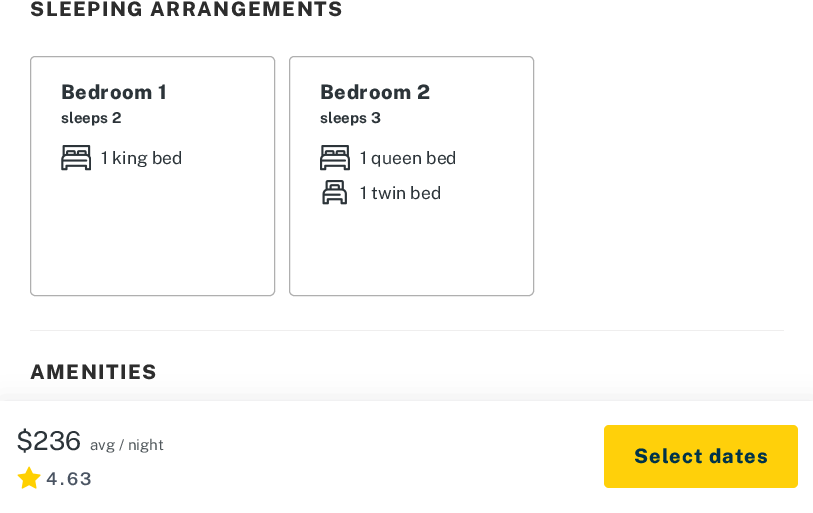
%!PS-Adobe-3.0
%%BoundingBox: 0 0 813 513
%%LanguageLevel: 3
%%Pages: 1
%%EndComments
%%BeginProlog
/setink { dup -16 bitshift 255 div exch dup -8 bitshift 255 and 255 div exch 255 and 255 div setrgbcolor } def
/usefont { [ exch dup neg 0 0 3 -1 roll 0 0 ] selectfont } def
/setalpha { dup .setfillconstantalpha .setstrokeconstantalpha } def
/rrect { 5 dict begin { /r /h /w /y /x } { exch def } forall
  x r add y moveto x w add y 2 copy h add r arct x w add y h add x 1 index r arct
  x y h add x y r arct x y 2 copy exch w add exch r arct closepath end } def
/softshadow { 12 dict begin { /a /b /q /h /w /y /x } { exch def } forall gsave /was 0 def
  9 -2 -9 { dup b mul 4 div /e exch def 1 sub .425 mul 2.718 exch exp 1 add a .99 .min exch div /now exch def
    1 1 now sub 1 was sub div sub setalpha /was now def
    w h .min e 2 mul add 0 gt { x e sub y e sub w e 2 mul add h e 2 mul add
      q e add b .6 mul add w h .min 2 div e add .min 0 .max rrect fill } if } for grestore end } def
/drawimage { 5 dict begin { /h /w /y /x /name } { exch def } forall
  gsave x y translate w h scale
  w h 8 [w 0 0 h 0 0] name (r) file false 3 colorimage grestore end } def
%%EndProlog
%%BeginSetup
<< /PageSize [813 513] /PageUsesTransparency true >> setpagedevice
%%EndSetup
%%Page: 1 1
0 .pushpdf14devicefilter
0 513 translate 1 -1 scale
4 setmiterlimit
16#FFFFFF setink
0 0 813 513 rectfill
16#EFEEEE setink
30 330 754 1 rectfill
/PublicSans-ExtraBold 20 usefont
16#2D2D2D setink
30 16 moveto 1.5 0 (SLEEPING ARRANGEMENTS) ashow
16#AFAFAF setink
30.5 56.5 244 239 4.5 rrect stroke
16#2C3439 setink
61 99 moveto 0.6 0 (Bedroom 1) ashow
/PublicSans-Bold 15 usefont
61 123 moveto (sleeps 2) show
(img1.raw) 61 145 30 26 drawimage
/PublicSans-Regular 17.5 usefont
101 164 moveto (1 king bed) show
16#AFAFAF setink
289.5 56.5 244 239 4.5 rrect stroke
/PublicSans-ExtraBold 20 usefont
16#2C3439 setink
320 99 moveto 0.6 0 (Bedroom 2) ashow
/PublicSans-Bold 15 usefont
320 123 moveto (sleeps 3) show
(img2.raw) 320 145 30 26 drawimage
/PublicSans-Regular 17.5 usefont
360 164 moveto (1 queen bed) show
(img3.raw) 322 180 25 25 drawimage
360 199 moveto (1 twin bed) show
/PublicSans-ExtraBold 20 usefont
16#2D2D2D setink
30 379 moveto 1.5 0 (AMENITIES) ashow
16#707579 setink
1 403 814 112 0 12.5 0.2 softshadow
16#FFFFFF setink
0 401 813 112 rectfill
/PublicSans-Regular 26 usefont
16#2C3439 setink
16 450 moveto ($236) show
/PublicSans-Regular 15 usefont
16#51585C setink
90 450 moveto (avg / night) show
(img4.raw) 17 466 24 23 drawimage
/PublicSans-SemiBold 17.5 usefont
16#4B5563 setink
46 485 moveto 2.5 0 (4.63) ashow
16#FFD00A setink
604 425 194 63 5 rrect fill
/PublicSans-ExtraBold 20 usefont
16#003349 setink
634 463 moveto 1 0 (Select dates) ashow
.poppdf14devicefilter showpage
%%EOF
